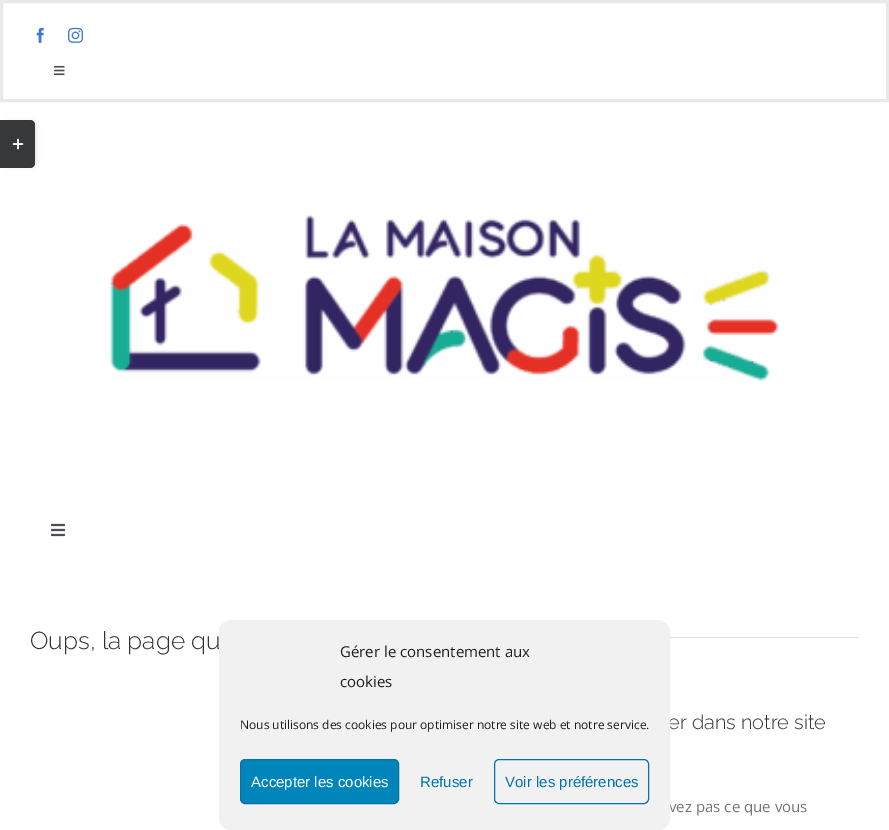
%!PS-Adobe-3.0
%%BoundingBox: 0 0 889 830
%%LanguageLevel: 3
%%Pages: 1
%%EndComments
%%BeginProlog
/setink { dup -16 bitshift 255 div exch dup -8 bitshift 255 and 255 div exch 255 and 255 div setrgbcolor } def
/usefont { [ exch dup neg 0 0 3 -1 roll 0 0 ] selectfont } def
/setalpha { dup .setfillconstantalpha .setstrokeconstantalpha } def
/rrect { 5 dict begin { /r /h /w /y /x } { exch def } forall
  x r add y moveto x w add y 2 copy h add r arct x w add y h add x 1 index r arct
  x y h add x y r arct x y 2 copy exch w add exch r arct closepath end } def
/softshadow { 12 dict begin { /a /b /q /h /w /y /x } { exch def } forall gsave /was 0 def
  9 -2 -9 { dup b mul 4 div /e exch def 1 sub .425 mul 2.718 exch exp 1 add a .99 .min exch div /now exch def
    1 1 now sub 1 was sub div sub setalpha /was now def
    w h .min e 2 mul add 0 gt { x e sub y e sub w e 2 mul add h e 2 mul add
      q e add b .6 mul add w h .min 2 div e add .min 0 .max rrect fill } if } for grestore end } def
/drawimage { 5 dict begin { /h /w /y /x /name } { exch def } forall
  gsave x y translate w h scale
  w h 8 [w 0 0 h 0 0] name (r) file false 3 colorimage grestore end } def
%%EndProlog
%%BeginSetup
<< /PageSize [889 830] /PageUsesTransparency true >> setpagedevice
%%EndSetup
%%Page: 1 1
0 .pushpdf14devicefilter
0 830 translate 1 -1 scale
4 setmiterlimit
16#FFFFFF setink
0 0 889 830 rectfill
16#EAE9E9 setink
3 setlinewidth
1.5 1.5 886 99 rectstroke
(img1.raw) 36 27 8 16 drawimage
(img2.raw) 68 27 15 16 drawimage
(img3.raw) 54 65 11 11 drawimage
(img4.raw) 110 215 669 166 drawimage
(img5.raw) 51 523 14 14 drawimage
16#000000 setink
5 122 31 44 3 2.5 0.14 softshadow
16#363839 setink
0 120 moveto 30 120 lineto 33 120 35 122 35 125 curveto 35 163 lineto 35 166 33 168 30 168 curveto 0 168 lineto closepath fill
(img6.raw) 12 138 12 12 drawimage
/Raleway-Thin 24.5 usefont
16#333333 setink
30 649 moveto (Oups, la page qu) show
16#E0DEDE setink
670 637 189 1 rectfill
/Raleway-Thin 20 usefont
16#333333 setink
668 729 moveto (er dans notre site) show
/OpenSans-Regular 15 usefont
16#747474 setink
669 812 moveto (vez pas ce que vous) show
16#F1F1F1 setink
219.5 620.5 450 209 11.5 rrect gsave fill grestore
1 setlinewidth
stroke
16#191E23 setink
340 657 moveto (Gérer le consentement aux) show
340 687 moveto (cookies) show
/OpenSans-Regular 12 usefont
240 729 moveto (Nous utilisons des cookies pour optimiser notre site web et notre service.) show
16#0085BA setink
240.5 759.5 158 44 4.5 rrect gsave fill grestore
16#0073AA setink
stroke
/LiberationSans-Regular 15 usefont
16#FFFFFF setink
251 787 moveto (Accepter les cookies) show
16#0073AA setink
420 787 moveto (Refuser) show
494.5 759.5 154 44 4.5 rrect stroke
505 787 moveto (Voir les préférences) show
.poppdf14devicefilter showpage
%%EOF
